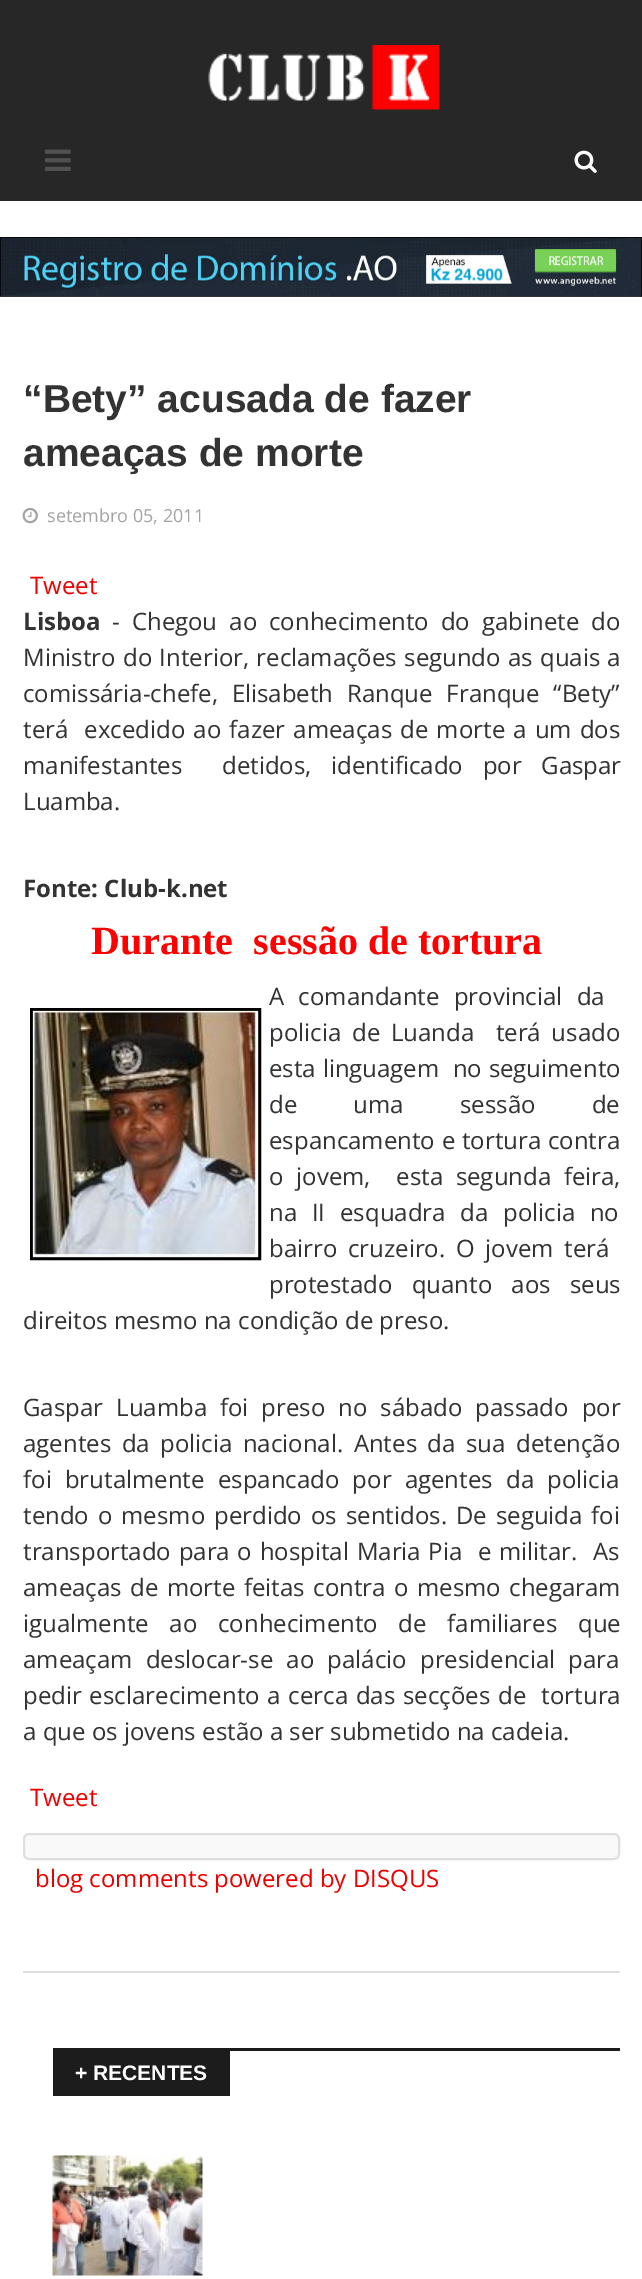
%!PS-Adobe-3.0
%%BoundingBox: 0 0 642 2279
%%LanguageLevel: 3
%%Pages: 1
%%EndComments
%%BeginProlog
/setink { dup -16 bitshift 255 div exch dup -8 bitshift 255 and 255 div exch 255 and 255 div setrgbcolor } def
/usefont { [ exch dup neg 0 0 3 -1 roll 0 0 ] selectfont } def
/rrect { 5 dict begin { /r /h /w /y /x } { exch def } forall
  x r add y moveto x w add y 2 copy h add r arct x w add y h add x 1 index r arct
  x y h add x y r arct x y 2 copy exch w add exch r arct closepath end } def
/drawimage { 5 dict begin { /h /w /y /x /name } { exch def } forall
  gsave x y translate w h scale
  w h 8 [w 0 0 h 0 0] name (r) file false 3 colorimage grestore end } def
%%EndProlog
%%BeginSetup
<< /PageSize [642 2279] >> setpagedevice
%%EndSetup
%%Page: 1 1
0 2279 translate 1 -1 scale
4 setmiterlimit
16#FFFFFF setink
0 0 642 2279 rectfill
16#272727 setink
0 0 642 201 rectfill
(img1.raw) 208 45 232 65 drawimage
(img2.raw) 45 149 26 22 drawimage
(img3.raw) 574 150 23 23 drawimage
(img4.raw) 0 237 642 60 drawimage
/Arimo-Bold 39 usefont
16#333333 setink
23 412 moveto (“Bety” acusada de fazer) show
23 466 moveto (ameaças de morte) show
(img5.raw) 22 507 16 17 drawimage
/OpenSans-Regular 18 usefont
16#A3A3A3 setink
47 522 moveto (setembro 05, 2011) show
/OpenSans-Regular 24 usefont
16#EC0000 setink
30 594 moveto (Tweet) show
/OpenSans-Bold 24 usefont
16#333333 setink
23 630 moveto (Lisboa) show
/OpenSans-Regular 24 usefont
112 630 moveto 5.75 0 32 (- Chegou ao conhecimento do gabinete do) widthshow
23 666 moveto 1 0 32 (Ministro do Interior, reclamações segundo as quais a) widthshow
23 702 moveto 7.5 0 32 (comissária-chefe, Elisabeth Ranque Franque “Bety”) widthshow
23 738 moveto 1.9 0 32 (terá  excedido ao fazer ameaças de morte a um dos) widthshow
23 774 moveto 13.5 0 32 (manifestantes  detidos, identificado por Gaspar) widthshow
23 810 moveto (Luamba.) show
/OpenSans-Bold 24 usefont
23 897 moveto (Fonte: Club-k.net) show
/LiberationSerif-Bold 40 usefont
16#FF0000 setink
91 954 moveto (Durante  sessão de tortura) show
/OpenSans-Regular 24 usefont
16#333333 setink
269 1005 moveto 8 0 32 (A comandante provincial da) widthshow
16#000000 setink
3 setlinewidth
31.5 1009.5 228 249 rectstroke
(img6.raw) 32 1010 227 248 drawimage
16#333333 setink
269 1041 moveto 4.5 0 32 (policia de Luanda  terá usado) widthshow
269 1077 moveto 0.5 0 32 (esta linguagem  no seguimento) widthshow
269 1113 moveto 50 0 32 (de uma sessão de) widthshow
269 1149 moveto 0.5 0 32 (espancamento e tortura contra) widthshow
269 1185 moveto 6.5 0 32 (o jovem,  esta segunda feira,) widthshow
269 1221 moveto 8.5 0 32 (na II esquadra da policia no) widthshow
269 1257 moveto 4.5 0 32 (bairro cruzeiro. O jovem terá) widthshow
269 1293 moveto 13 0 32 (protestado quanto aos seus) widthshow
23 1329 moveto (direitos mesmo na condição de preso.) show
23 1416 moveto 6.75 0 32 (Gaspar Luamba foi preso no sábado passado por) widthshow
23 1452 moveto 4.25 0 32 (agentes da policia nacional. Antes da sua detenção) widthshow
23 1488 moveto 7 0 32 (foi brutalmente espancado por agentes da policia) widthshow
23 1524 moveto 2.75 0 32 (tendo o mesmo perdido os sentidos. De seguida foi) widthshow
23 1560 moveto 1.5 0 32 (transportado para o hospital Maria Pia  e militar.  As) widthshow
23 1596 moveto 2.25 0 32 (ameaças de morte feitas contra o mesmo chegaram) widthshow
23 1632 moveto 14.5 0 32 (igualmente ao conhecimento de familiares que) widthshow
23 1668 moveto 7 0 32 (ameaçam deslocar-se ao palácio presidencial para) widthshow
23 1704 moveto 1.5 0 32 (pedir esclarecimento a cerca das secções de  tortura) widthshow
23 1740 moveto (a que os jovens estão a ser submetido na cadeia.) show
16#EC0000 setink
30 1806 moveto (Tweet) show
16#F9F9F9 setink
24 1834 595 25 5 rrect gsave fill grestore
16#DFDFDF setink
2 setlinewidth
stroke
16#EC0000 setink
35 1887 moveto (blog comments powered by DISQUS) show
[
    [23 1971 597 2 16#DEDEDE]
    [53 2048 567 3 16#1C1C1C]
    [53 2051 177 45 16#1C1C1C]
] { aload pop setink rectfill } forall
/Arimo-Bold 21 usefont
16#FFFFFF setink
75 2080 moveto (+ RECENTES) show
(img7.raw) 52 2155 151 121 drawimage
showpage
%%EOF
